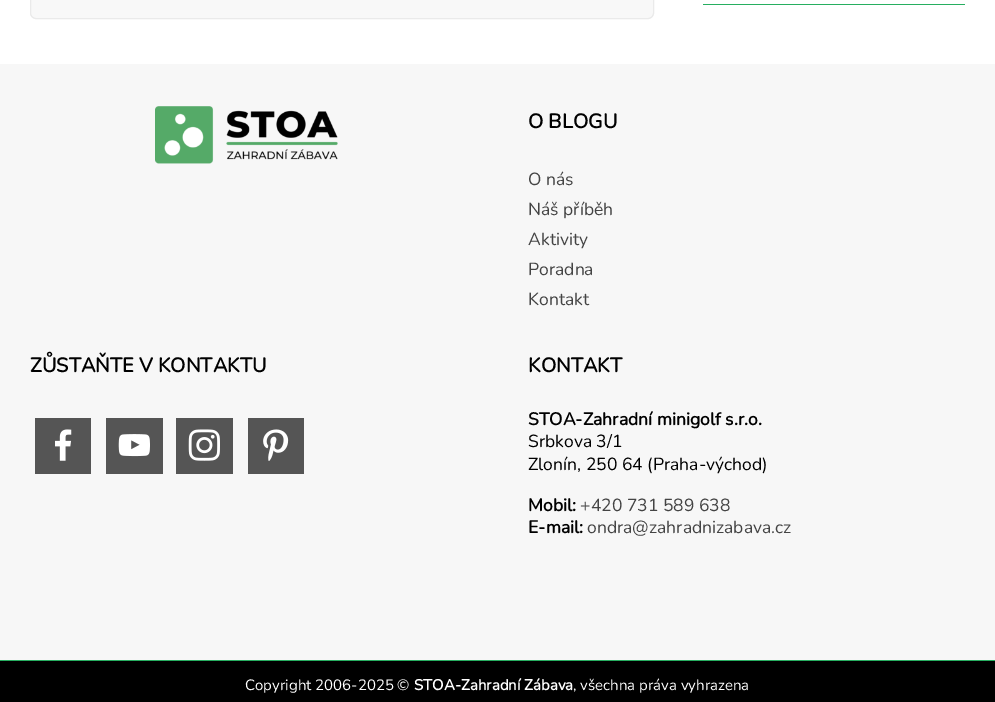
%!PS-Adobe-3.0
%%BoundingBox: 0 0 995 702
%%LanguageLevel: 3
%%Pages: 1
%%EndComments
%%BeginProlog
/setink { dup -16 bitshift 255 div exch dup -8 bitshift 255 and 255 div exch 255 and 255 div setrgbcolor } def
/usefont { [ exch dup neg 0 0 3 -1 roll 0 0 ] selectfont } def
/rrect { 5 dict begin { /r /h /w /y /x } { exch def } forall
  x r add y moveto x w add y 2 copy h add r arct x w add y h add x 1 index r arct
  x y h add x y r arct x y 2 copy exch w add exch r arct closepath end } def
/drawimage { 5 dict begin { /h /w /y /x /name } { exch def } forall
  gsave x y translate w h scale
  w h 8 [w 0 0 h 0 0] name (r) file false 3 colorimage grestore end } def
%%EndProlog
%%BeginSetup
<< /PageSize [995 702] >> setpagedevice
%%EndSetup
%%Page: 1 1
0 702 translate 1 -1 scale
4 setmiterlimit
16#FFFFFF setink
0 0 995 702 rectfill
16#F8F8F8 setink
30.5 -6.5 623 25 5.5 rrect gsave fill grestore
16#EAEAEA setink
stroke
16#27AE60 setink
703 4 262 1 rectfill
16#F7F7F7 setink
0 64 995 596 rectfill
(img1.raw) 155 106 183 58 drawimage
/Nunito-Bold 20 usefont
16#000000 setink
528 128 moveto (O BLOGU) show
/Nunito-ExtraLight 17.5 usefont
16#444444 setink
[
    [(O nás) 528 185]
    [(Náš příběh) 528 215]
    [(Aktivity) 528 245]
    [(Poradna) 528 275]
    [(Kontakt) 528 305]
] { aload pop moveto show } forall
/Nunito-Bold 20 usefont
16#000000 setink
30 372 moveto (ZŮSTAŇTE V KONTAKTU) show
16#555555 setink
35 418 56 56 rectfill
(img2.raw) 55 429 17 32 drawimage
106 418 57 56 rectfill
(img3.raw) 118 434 32 23 drawimage
176 418 57 56 rectfill
(img4.raw) 188 429 32 32 drawimage
248 418 56 56 rectfill
(img5.raw) 263 429 26 32 drawimage
16#000000 setink
528 372 moveto (KONTAKT) show
/Nunito-Bold 17.5 usefont
528 425 moveto (STOA-Zahradní minigolf s.r.o.) show
/Nunito-ExtraLight 17.5 usefont
528 447 moveto (Srbkova 3/1) show
528 470 moveto (Zlonín, 250 64 \(Praha-východ\)) show
/Nunito-Bold 17.5 usefont
528 511 moveto (Mobil:) show
/Nunito-ExtraLight 17.5 usefont
16#444444 setink
580 511 moveto (+420 731 589 638) show
/Nunito-Bold 17.5 usefont
16#000000 setink
528 533 moveto (E-mail:) show
/Nunito-ExtraLight 17.5 usefont
16#444444 setink
587 533 moveto (ondra@zahradnizabava.cz) show
16#000000 setink
0 661 995 41 rectfill
16#27AE60 setink
0 660 995 1 rectfill
/Nunito-ExtraLight 15 usefont
16#FFFFFF setink
245 690 moveto (Copyright 2006-2025 ©) show
/Nunito-Bold 15 usefont
414 690 moveto (STOA-Zahradní Zábava) show
/Nunito-ExtraLight 15 usefont
573 690 moveto (, všechna práva vyhrazena) show
showpage
%%EOF
